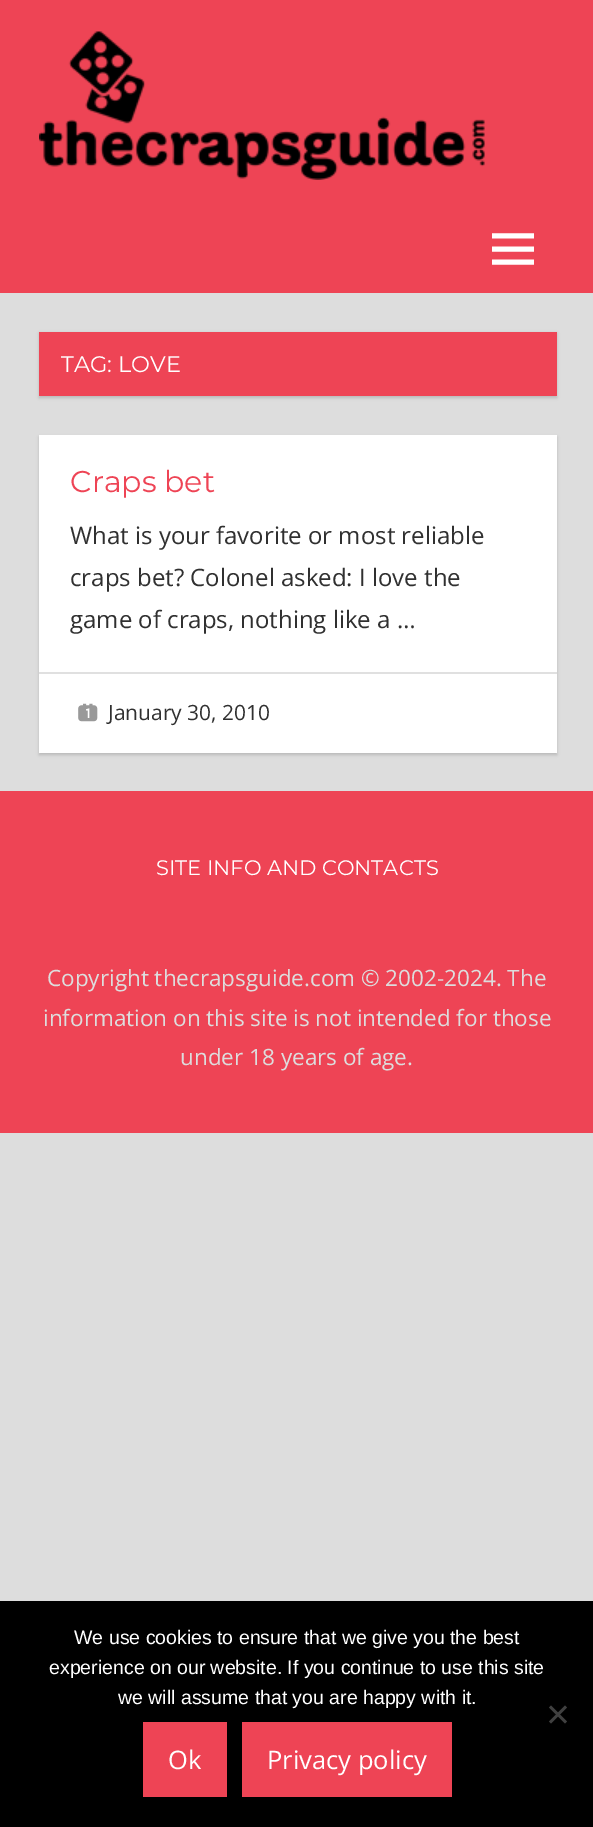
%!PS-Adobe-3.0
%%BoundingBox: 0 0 593 1827
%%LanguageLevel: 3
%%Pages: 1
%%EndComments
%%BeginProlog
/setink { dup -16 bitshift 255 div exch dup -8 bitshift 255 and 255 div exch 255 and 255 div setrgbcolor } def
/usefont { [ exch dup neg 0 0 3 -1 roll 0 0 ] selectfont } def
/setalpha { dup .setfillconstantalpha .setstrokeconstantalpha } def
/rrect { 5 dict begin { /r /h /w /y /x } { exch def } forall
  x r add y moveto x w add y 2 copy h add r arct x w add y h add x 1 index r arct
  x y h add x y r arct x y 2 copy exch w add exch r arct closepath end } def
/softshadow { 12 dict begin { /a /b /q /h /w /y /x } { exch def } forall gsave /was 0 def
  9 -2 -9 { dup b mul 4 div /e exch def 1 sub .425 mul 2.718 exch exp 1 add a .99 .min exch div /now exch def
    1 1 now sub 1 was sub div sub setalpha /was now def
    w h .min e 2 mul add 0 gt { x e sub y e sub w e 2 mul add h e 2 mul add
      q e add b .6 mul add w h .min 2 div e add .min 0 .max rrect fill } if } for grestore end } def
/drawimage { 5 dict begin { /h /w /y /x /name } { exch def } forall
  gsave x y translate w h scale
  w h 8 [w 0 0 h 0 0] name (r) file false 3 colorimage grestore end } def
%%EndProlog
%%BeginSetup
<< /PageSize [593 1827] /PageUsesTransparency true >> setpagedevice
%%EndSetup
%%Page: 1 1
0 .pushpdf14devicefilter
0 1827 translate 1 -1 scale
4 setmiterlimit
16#DDDDDD setink
0 0 593 1827 rectfill
16#EE4455 setink
0 0 593 293 rectfill
(img1.raw) 39 31 446 149 drawimage
(img2.raw) 492 233 42 32 drawimage
16#BBBBBB setink
39 333 518 65 0 1.5 1 softshadow
16#EE4455 setink
39 332 518 64 rectfill
/Montserrat-Regular 22.5 usefont
16#FFFFFF setink
61 372 moveto (TAG: LOVE) show
16#BBBBBB setink
39 437 518 318 0 1.5 1 softshadow
16#FFFFFF setink
39 435 518 318 rectfill
/Montserrat-Regular 30 usefont
16#EE4455 setink
70 492 moveto (Craps bet) show
/OpenSans-Regular 24 usefont
16#303030 setink
[
    [(What is your favorite or most reliable) 70 544]
    [(craps bet? Colonel asked: I love the) 70 586]
    [(game of craps, nothing like a …) 70 628]
] { aload pop moveto show } forall
16#E0E0E0 setink
39 672 518 2 rectfill
(img3.raw) 78 703 20 19 drawimage
/OpenSans-Regular 21 usefont
16#303030 setink
108 720 moveto (January 30, 2010) show
16#EE4455 setink
0 791 593 342 rectfill
/Montserrat-Regular 21 usefont
16#FFFFFF setink
156 875 moveto (SITE INFO AND CONTACTS) show
/OpenSans-Regular 22.5 usefont
16#DDDDDD setink
[
    [(Copyright thecrapsguide.com © 2002-2024. The) 47 986]
    [(information on this site is not intended for those) 43 1026]
    [(under 18 years of age.) 180 1065]
] { aload pop moveto show } forall
16#000000 setink
0 1601 593 226 rectfill
/LiberationSans-Regular 19.5 usefont
16#FFFFFF setink
[
    [(We use cookies to ensure that we give you the best) 74 1644]
    [(experience on our website. If you continue to use this site) 49 1674]
    [(we will assume that you are happy with it.) 118 1704]
] { aload pop moveto show } forall
16#404040 setink
565 1705.5 moveto 567 1707.5 lineto 551 1723.5 lineto 549 1721.5 lineto closepath fill
549 1707.5 moveto 551 1705.5 lineto 567 1721.5 lineto 565 1723.5 lineto closepath fill
16#EE4455 setink
143 1722 84 75 rectfill
/OpenSans-Regular 25.5 usefont
16#FFFFFF setink
168 1769 moveto (Ok) show
16#EE4455 setink
242 1722 210 75 rectfill
16#FFFFFF setink
267 1769 moveto (Privacy policy) show
.poppdf14devicefilter showpage
%%EOF
